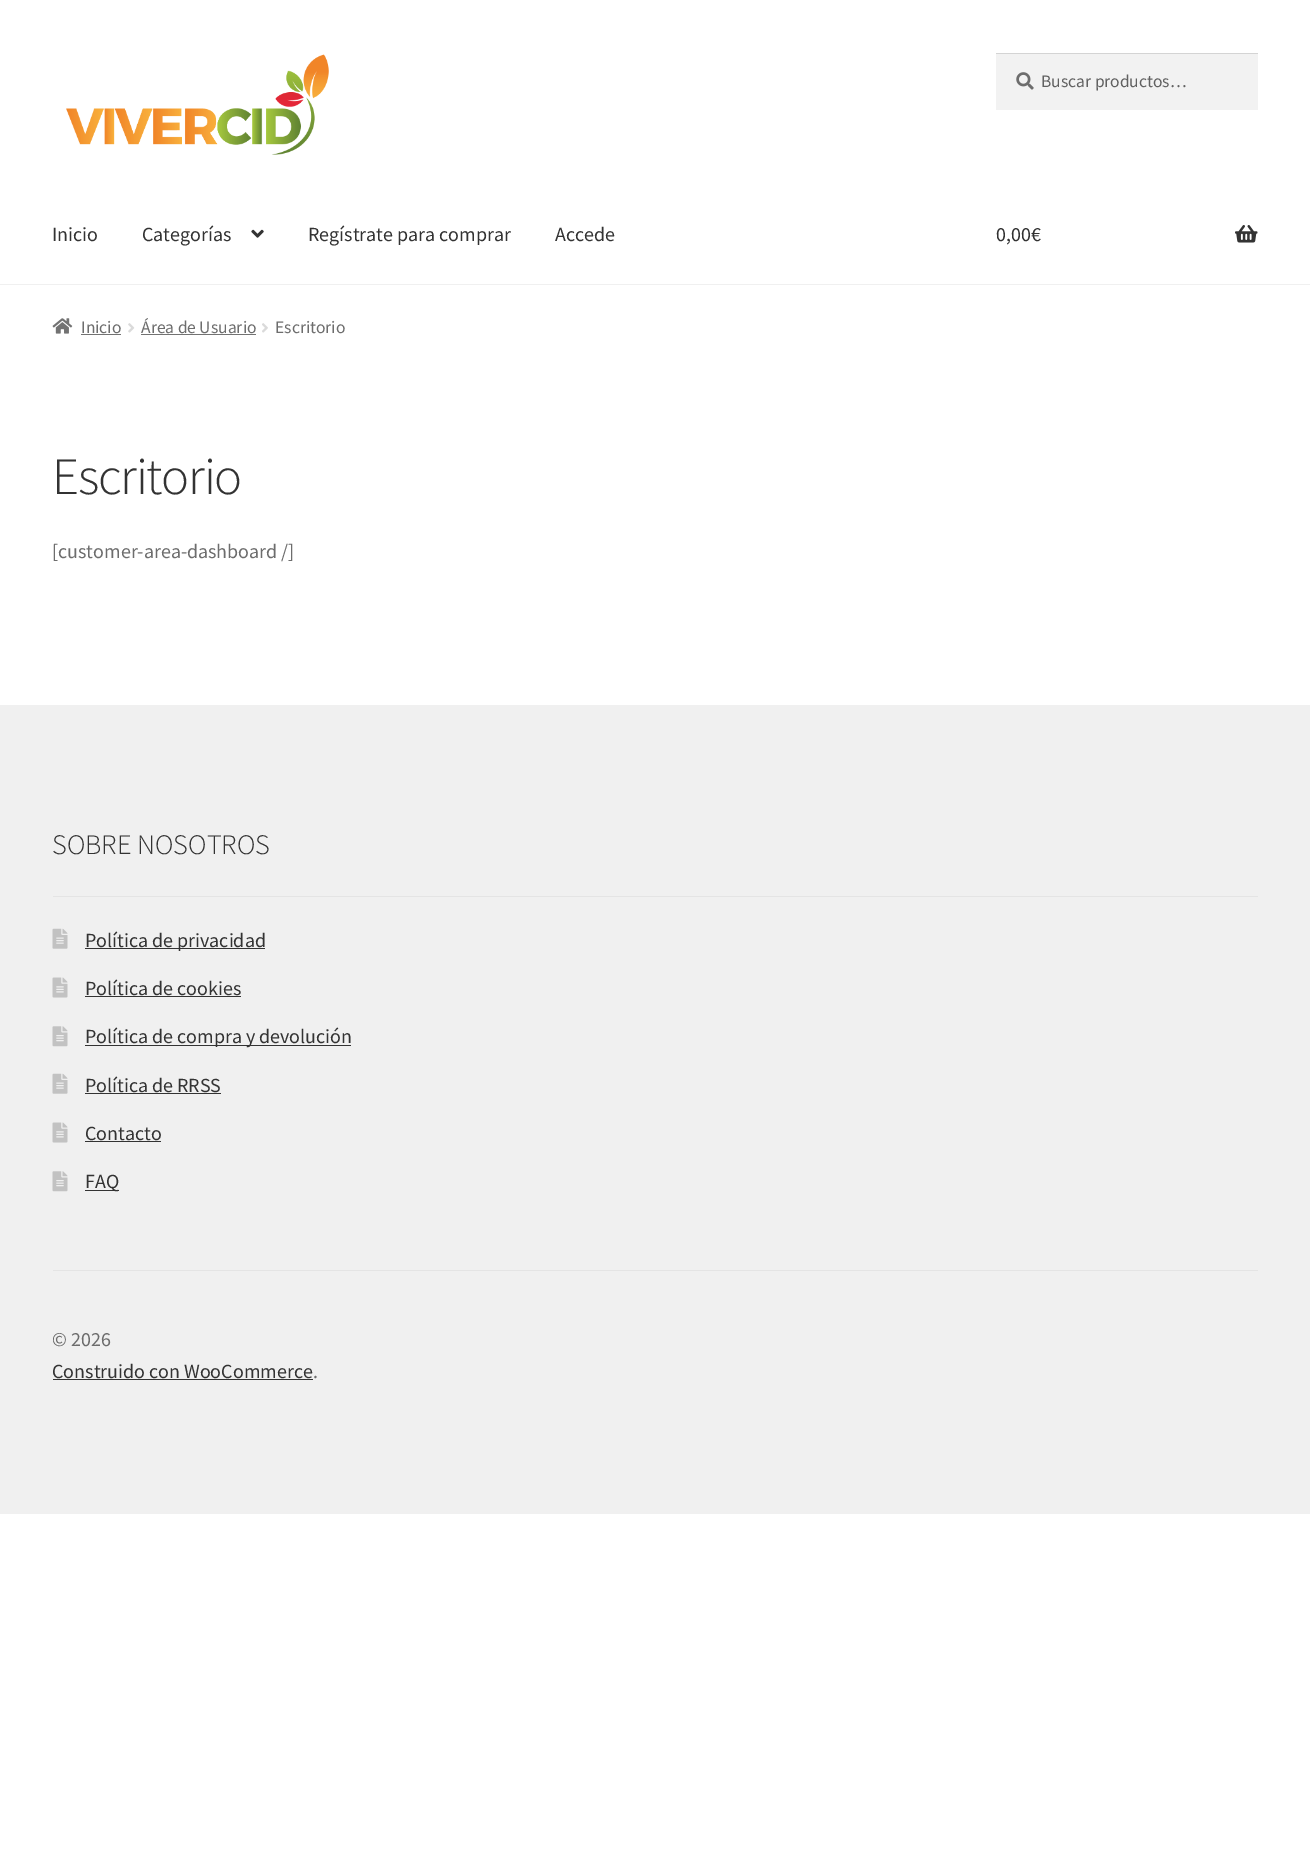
%!PS-Adobe-3.0
%%BoundingBox: 0 0 1310 1854
%%LanguageLevel: 3
%%Pages: 1
%%EndComments
%%BeginProlog
/setink { dup -16 bitshift 255 div exch dup -8 bitshift 255 and 255 div exch 255 and 255 div setrgbcolor } def
/usefont { [ exch dup neg 0 0 3 -1 roll 0 0 ] selectfont } def
/drawimage { 5 dict begin { /h /w /y /x /name } { exch def } forall
  gsave x y translate w h scale
  w h 8 [w 0 0 h 0 0] name (r) file false 3 colorimage grestore end } def
%%EndProlog
%%BeginSetup
<< /PageSize [1310 1854] >> setpagedevice
%%EndSetup
%%Page: 1 1
0 1854 translate 1 -1 scale
4 setmiterlimit
16#FFFFFF setink
0 0 1310 1854 rectfill
16#F0F0F0 setink
0 284 1310 1 rectfill
(img1.raw) 66 54 263 101 drawimage
16#F2F2F2 setink
996 54 262 56 rectfill
(img2.raw) 1016 72 18 18 drawimage
16#D4D4D4 setink
996 53 262 1 rectfill
/SourceSansPro-Regular 17.5 usefont
16#616161 setink
1041 87 moveto (Buscar productos…) show
/SourceSansPro-Regular 20 usefont
16#333333 setink
52 241 moveto (Inicio) show
142 241 moveto (Categorías) show
(img3.raw) 251 229 13 9 drawimage
[
    [(Regístrate para comprar) 308 241]
    [(Accede) 555 241]
    [(0,00€) 996 241]
] { aload pop moveto show } forall
(img4.raw) 1235 225 23 18 drawimage
(img5.raw) 52 318 21 16 drawimage
/SourceSansPro-Regular 17.5 usefont
16#6D6D6D setink
81 333 moveto (Inicio) show
16#727272 setink
81 334 40 1 rectfill
(img6.raw) 128 323 7 10 drawimage
16#6D6D6D setink
141 333 moveto (Área de Usuario) show
16#727272 setink
141 334 115 1 rectfill
(img7.raw) 262 323 6 10 drawimage
16#6D6D6D setink
275 333 moveto (Escritorio) show
/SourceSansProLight-Light 52.5 usefont
16#333333 setink
52 494 moveto -1.25 0 (Escritorio) ashow
/SourceSansPro-Regular 20 usefont
16#6D6D6D setink
52 558 moveto ([customer-area-dashboard /]) show
[
    [0 705 1310 809 16#F0F0F0]
    [53 1270 1205 1 16#E4E4E4]
    [53 896 1205 1 16#E4E4E4]
] { aload pop setink rectfill } forall
/SourceSansProLight-Light 28.25 usefont
16#333333 setink
52 854 moveto (SOBRE NOSOTROS) show
(img8.raw) 52 928 16 21 drawimage
85 948 180 1 rectfill
/SourceSansPro-Regular 20 usefont
85 947 moveto (Política de privacidad) show
(img9.raw) 52 977 16 21 drawimage
85 995 moveto (Política de cookies) show
85 996 156 1 rectfill
(img10.raw) 52 1026 16 21 drawimage
85 1045 266 1 rectfill
85 1043 moveto (Política de compra y devolución) show
(img8.raw) 52 1073 16 21 drawimage
85 1092 moveto (Política de RRSS) show
85 1093 136 1 rectfill
(img9.raw) 52 1122 16 21 drawimage
85 1140 moveto (Contacto) show
85 1141 76 1 rectfill
(img10.raw) 52 1171 16 21 drawimage
85 1190 34 1 rectfill
85 1188 moveto (FAQ) show
16#6D6D6D setink
52 1346 moveto (© 2026) show
16#333333 setink
52 1378 moveto (Construido con WooCommerce) show
53 1379 260 1 rectfill
16#6D6D6D setink
313 1378 moveto (.) show
showpage
%%EOF
